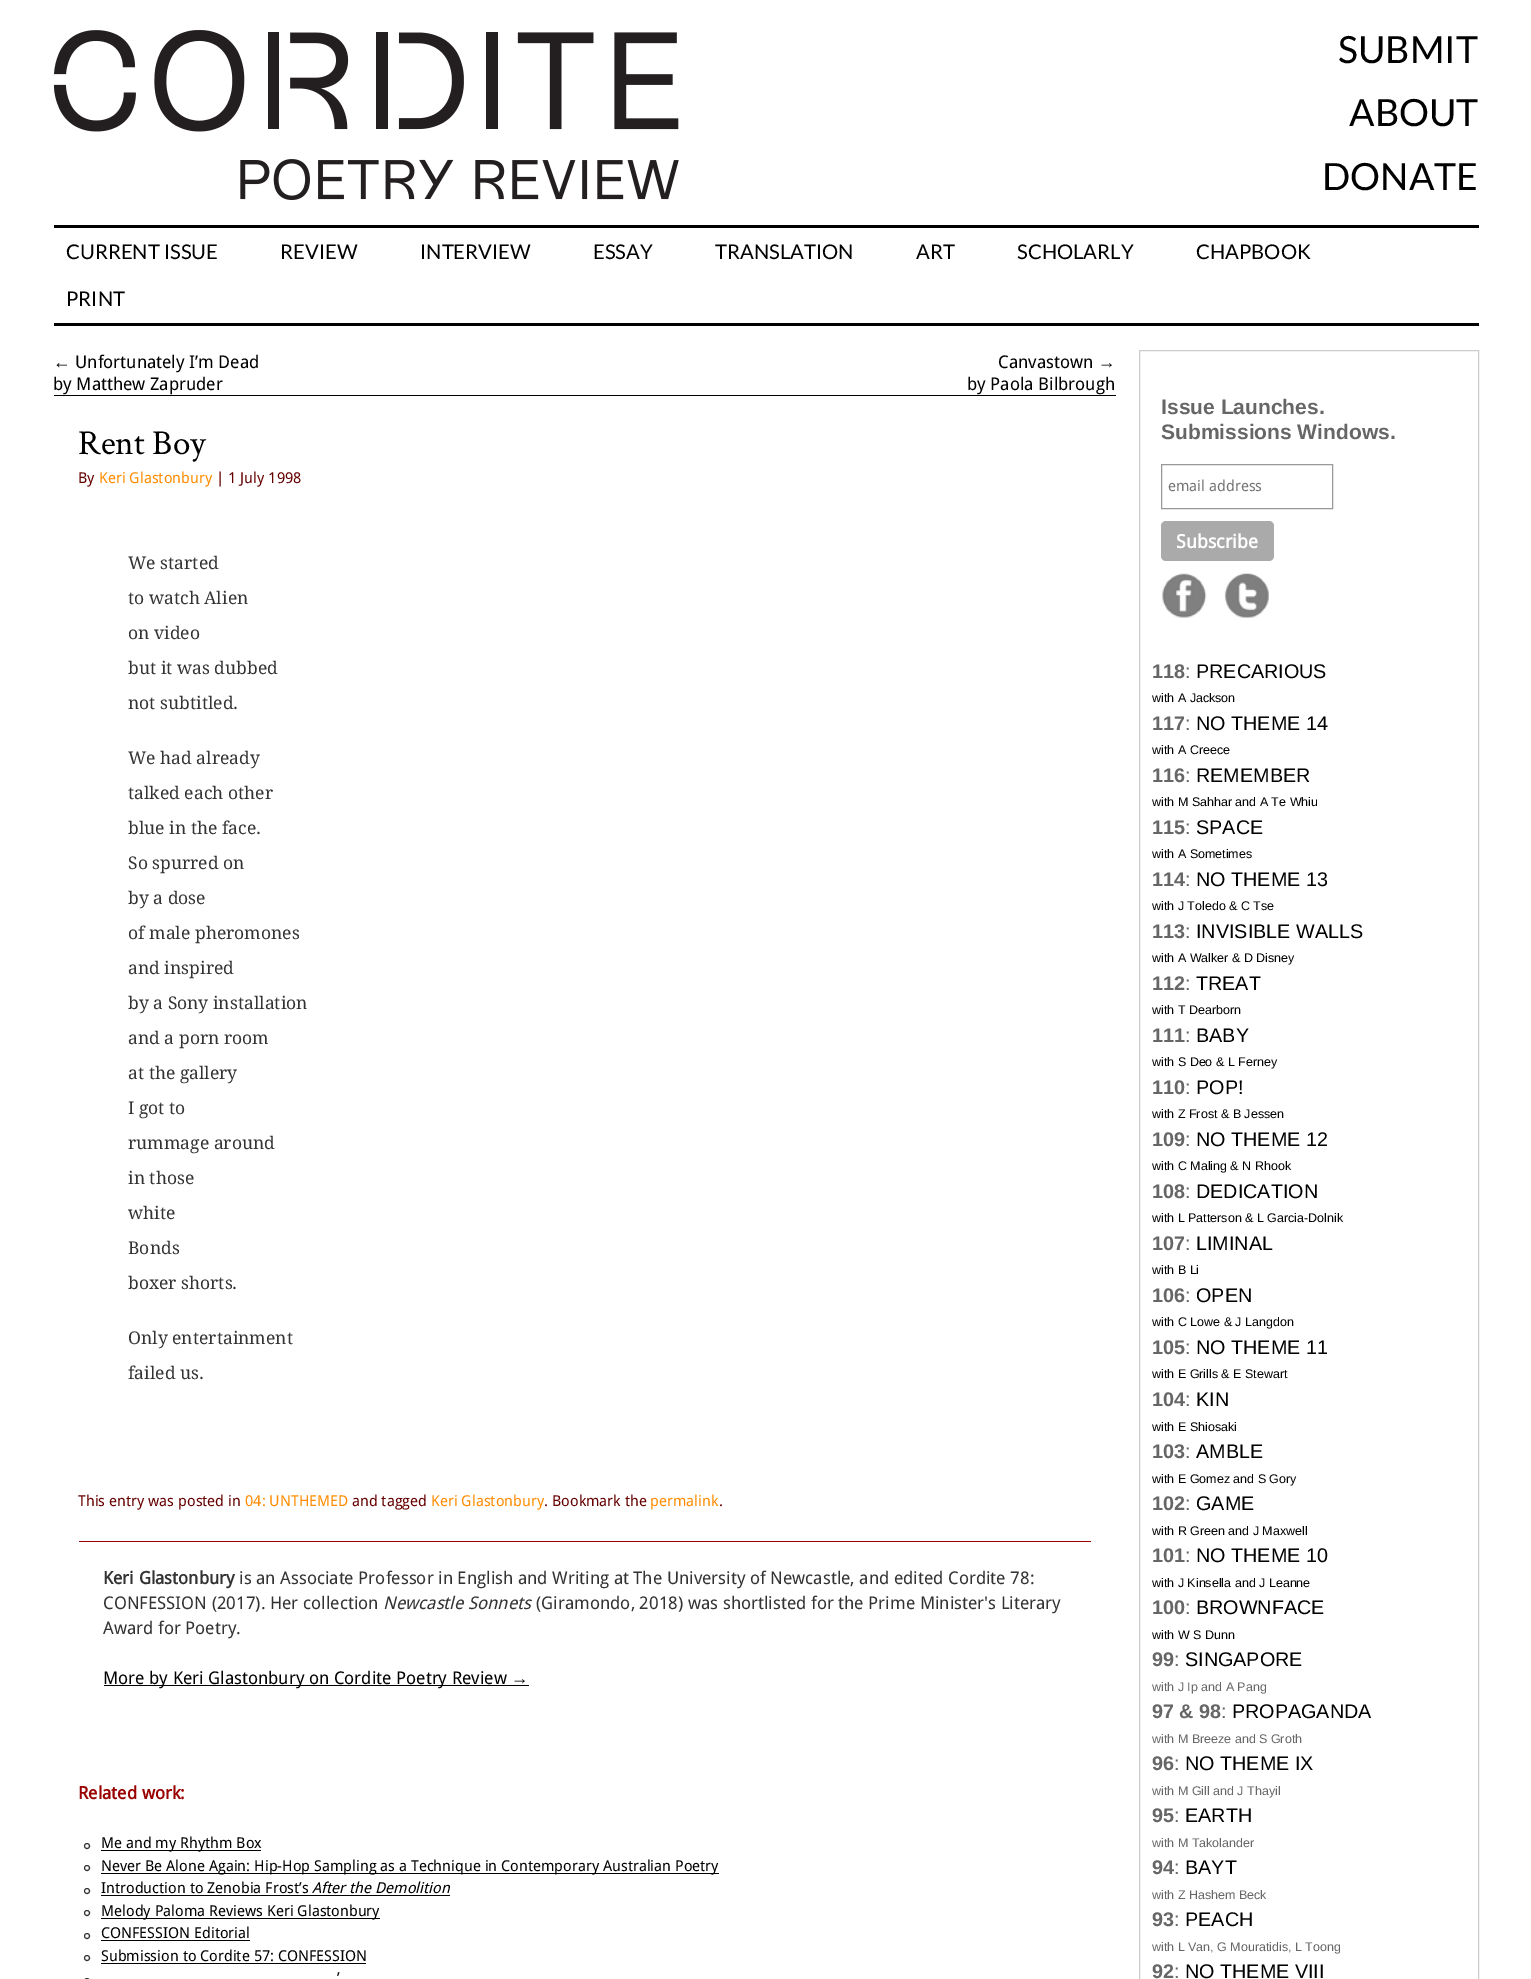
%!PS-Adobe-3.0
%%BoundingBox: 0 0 1531 1979
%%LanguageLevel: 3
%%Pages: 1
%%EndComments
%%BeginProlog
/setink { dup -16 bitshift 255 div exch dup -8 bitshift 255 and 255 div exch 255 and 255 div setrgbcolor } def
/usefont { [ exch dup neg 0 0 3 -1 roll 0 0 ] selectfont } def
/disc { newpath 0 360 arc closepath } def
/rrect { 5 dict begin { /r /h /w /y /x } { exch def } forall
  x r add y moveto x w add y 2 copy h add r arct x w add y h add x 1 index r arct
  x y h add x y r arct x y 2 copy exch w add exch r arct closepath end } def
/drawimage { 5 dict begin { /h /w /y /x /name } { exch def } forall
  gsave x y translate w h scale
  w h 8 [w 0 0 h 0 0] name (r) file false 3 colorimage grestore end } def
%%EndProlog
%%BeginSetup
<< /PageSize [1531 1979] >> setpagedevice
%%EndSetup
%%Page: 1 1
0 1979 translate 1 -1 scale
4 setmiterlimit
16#FFFFFF setink
0 0 1531 1979 rectfill
(img1.raw) 54 30 625 170 drawimage
/Lato-Regular 37.5 usefont
16#000000 setink
[
    [(SUBMIT) 1338 63]
    [(ABOUT) 1349 126]
    [(DONATE) 1322 190]
] { aload pop moveto show } forall
54 225 1425 3 rectfill
54 323 1425 3 rectfill
/Lato-Regular 20.25 usefont
[
    [(CURRENT ISSUE) 66 259]
    [(REVIEW) 280 259]
    [(INTERVIEW) 420 259]
    [(ESSAY) 593 259]
    [(TRANSLATION) 715 259]
    [(ART) 916 259]
    [(SCHOLARLY) 1017 259]
    [(CHAPBOOK) 1196 259]
    [(PRINT) 66 306]
] { aload pop moveto show } forall
54 395 1062 1 rectfill
/LiberationSans-Regular 17.5 usefont
53 368 moveto (←) show
/DroidSans-Regular 17.5 usefont
[
    [(Unfortunately I’m Dead) 75 368]
    [(by Matthew Zapruder) 53 390]
    [(Canvastown) 998 368]
] { aload pop moveto show } forall
/LiberationSans-Regular 17.5 usefont
1098 368 moveto (→) show
/DroidSans-Regular 17.5 usefont
967 390 moveto (by Paola Bilbrough) show
/CrimsonText-Regular 35 usefont
78 454 moveto (Rent Boy) show
/DroidSans-Regular 15 usefont
16#660000 setink
78 483 moveto (By) show
16#FF8C00 setink
99 483 moveto (Keri Glastonbury) show
16#660000 setink
216 483 moveto (| 1 July 1998) show
/DroidSerif-Regular 17.5 usefont
16#333333 setink
[
    [(We started) 128 569]
    [(to watch Alien) 128 604]
    [(on video) 128 639]
    [(but it was dubbed) 128 674]
    [(not subtitled.) 128 709]
    [(We had already) 128 764]
    [(talked each other) 128 799]
    [(blue in the face.) 128 834]
    [(So spurred on) 128 869]
    [(by a dose) 128 904]
    [(of male pheromones) 128 939]
    [(and inspired) 128 974]
    [(by a Sony installation) 128 1009]
    [(and a porn room) 128 1044]
    [(at the gallery) 128 1079]
    [(I got to) 128 1114]
    [(rummage around) 128 1149]
    [(in those) 128 1184]
    [(white) 128 1219]
    [(Bonds) 128 1254]
    [(boxer shorts.) 128 1289]
    [(Only entertainment) 128 1344]
    [(failed us.) 128 1379]
] { aload pop moveto show } forall
/DroidSans-Regular 15 usefont
16#660000 setink
78 1506 moveto (This entry was posted in) show
16#FF8C00 setink
245 1506 moveto (04: UNTHEMED) show
16#660000 setink
352 1506 moveto (and tagged) show
16#FF8C00 setink
431 1506 moveto (Keri Glastonbury) show
16#660000 setink
544 1506 moveto (. Bookmark the) show
16#FF8C00 setink
650 1506 moveto (permalink) show
16#660000 setink
719 1506 moveto (.) show
16#990000 setink
79 1541 1012 1 rectfill
/DroidSans-Bold 17.5 usefont
16#333333 setink
103 1584 moveto (Keri Glastonbury) show
/DroidSans-Regular 17.5 usefont
239 1584 moveto (is an Associate Professor in English and Writing at The University of Newcastle, and edited Cordite 78:) show
103 1609 moveto (CONFESSION \(2017\). Her collection) show
/DroidSans-Italic 17.5 usefont
383 1609 moveto (Newcastle Sonnets) show
/DroidSans-Regular 17.5 usefont
536 1609 moveto (\(Giramondo, 2018\) was shortlisted for the Prime Minister's Literary) show
103 1634 moveto (Award for Poetry.) show
16#000000 setink
104 1685 425 1 rectfill
103 1684 moveto (More by Keri Glastonbury on Cordite Poetry Review) show
/LiberationSans-Regular 17.5 usefont
511 1684 moveto (→) show
/DroidSans-Bold 17.5 usefont
16#990000 setink
78 1799 moveto (Related work:) show
16#333333 setink
87 1846 2.5 disc stroke
16#000000 setink
101 1850 160 1 rectfill
/DroidSans-Regular 15 usefont
101 1848 moveto (Me and my Rhythm Box) show
16#333333 setink
87 1868 2.5 disc stroke
16#000000 setink
101 1873 618 1 rectfill
101 1871 moveto (Never Be Alone Again: Hip-Hop Sampling as a Technique in Contemporary Australian Poetry) show
16#333333 setink
87 1891 2.5 disc stroke
16#000000 setink
101 1893 moveto (Introduction to Zenobia Frost’s) show
101 1895 349 1 rectfill
/DroidSans-Italic 15 usefont
312 1893 moveto (After the Demolition) show
16#333333 setink
87 1913 2.5 disc stroke
16#000000 setink
101 1918 279 1 rectfill
/DroidSans-Regular 15 usefont
101 1916 moveto (Melody Paloma Reviews Keri Glastonbury) show
16#333333 setink
87 1936 2.5 disc stroke
16#000000 setink
101 1938 moveto (CONFESSION Editorial) show
101 1940 149 1 rectfill
16#333333 setink
87 1958 2.5 disc stroke
16#000000 setink
101 1961 moveto (Submission to Cordite 57: CONFESSION) show
101 1963 265 1 rectfill
337 1983 moveto (’) show
16#333333 setink
84.5 1978.5 5 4 2.5 rrect stroke
16#CCCCCC setink
1139.5 350.5 339 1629 rectstroke
/LiberationSans-Bold 21 usefont
16#666666 setink
1161 414 moveto (Issue Launches.) show
1161 439 moveto (Submissions Windows.) show
16#999999 setink
1161.5 464.5 171 44 rectstroke
/DroidSans-Regular 15 usefont
16#757575 setink
1168 491 moveto (email address) show
16#AAAAAA setink
1161 521 113 40 5 rrect fill
/DroidSans-Bold 18.75 usefont
16#FFFFFF setink
1176 548 moveto (Subscribe) show
(img2.raw) 1162 573 45 45 drawimage
(img3.raw) 1224 573 45 45 drawimage
/LiberationSans-Bold 19.75 usefont
16#666666 setink
1152 678 moveto (118) show
/LiberationSans-Regular 19.75 usefont
1185 678 moveto (:) show
16#000000 setink
1196 678 moveto (PRECARIOUS) show
/LiberationSans-Regular 12.5 usefont
1152 702 moveto (with A Jackson) show
/LiberationSans-Bold 19.75 usefont
16#666666 setink
1152 730 moveto (117) show
/LiberationSans-Regular 19.75 usefont
1185 730 moveto (:) show
16#000000 setink
1196 730 moveto (NO THEME 14) show
/LiberationSans-Regular 12.5 usefont
1152 754 moveto (with A Creece) show
/LiberationSans-Bold 19.75 usefont
16#666666 setink
1152 782 moveto (116) show
/LiberationSans-Regular 19.75 usefont
1185 782 moveto (:) show
16#000000 setink
1196 782 moveto (REMEMBER) show
/LiberationSans-Regular 12.5 usefont
1152 806 moveto (with M Sahhar and A Te Whiu) show
/LiberationSans-Bold 19.75 usefont
16#666666 setink
1152 834 moveto (115) show
/LiberationSans-Regular 19.75 usefont
1185 834 moveto (:) show
16#000000 setink
1196 834 moveto (SPACE) show
/LiberationSans-Regular 12.5 usefont
1152 858 moveto (with A Sometimes) show
/LiberationSans-Bold 19.75 usefont
16#666666 setink
1152 886 moveto (114) show
/LiberationSans-Regular 19.75 usefont
1185 886 moveto (:) show
16#000000 setink
1196 886 moveto (NO THEME 13) show
/LiberationSans-Regular 12.5 usefont
1152 910 moveto (with J Toledo & C Tse) show
/LiberationSans-Bold 19.75 usefont
16#666666 setink
1152 938 moveto (113) show
/LiberationSans-Regular 19.75 usefont
1185 938 moveto (:) show
16#000000 setink
1196 938 moveto (INVISIBLE WALLS) show
/LiberationSans-Regular 12.5 usefont
1152 962 moveto (with A Walker & D Disney) show
/LiberationSans-Bold 19.75 usefont
16#666666 setink
1152 990 moveto (112) show
/LiberationSans-Regular 19.75 usefont
1185 990 moveto (:) show
16#000000 setink
1196 990 moveto (TREAT) show
/LiberationSans-Regular 12.5 usefont
1152 1014 moveto (with T Dearborn) show
/LiberationSans-Bold 19.75 usefont
16#666666 setink
1152 1042 moveto (111) show
/LiberationSans-Regular 19.75 usefont
1185 1042 moveto (:) show
16#000000 setink
1196 1042 moveto (BABY) show
/LiberationSans-Regular 12.5 usefont
1152 1066 moveto (with S Deo & L Ferney) show
/LiberationSans-Bold 19.75 usefont
16#666666 setink
1152 1094 moveto (110) show
/LiberationSans-Regular 19.75 usefont
1185 1094 moveto (:) show
16#000000 setink
1196 1094 moveto (POP!) show
/LiberationSans-Regular 12.5 usefont
1152 1118 moveto (with Z Frost & B Jessen) show
/LiberationSans-Bold 19.75 usefont
16#666666 setink
1152 1146 moveto (109) show
/LiberationSans-Regular 19.75 usefont
1185 1146 moveto (:) show
16#000000 setink
1196 1146 moveto (NO THEME 12) show
/LiberationSans-Regular 12.5 usefont
1152 1170 moveto (with C Maling & N Rhook) show
/LiberationSans-Bold 19.75 usefont
16#666666 setink
1152 1198 moveto (108) show
/LiberationSans-Regular 19.75 usefont
1185 1198 moveto (:) show
16#000000 setink
1196 1198 moveto (DEDICATION) show
/LiberationSans-Regular 12.5 usefont
1152 1222 moveto (with L Patterson & L Garcia-Dolnik) show
/LiberationSans-Bold 19.75 usefont
16#666666 setink
1152 1250 moveto (107) show
/LiberationSans-Regular 19.75 usefont
1185 1250 moveto (:) show
16#000000 setink
1196 1250 moveto (LIMINAL) show
/LiberationSans-Regular 12.5 usefont
1152 1274 moveto (with B Li) show
/LiberationSans-Bold 19.75 usefont
16#666666 setink
1152 1302 moveto (106) show
/LiberationSans-Regular 19.75 usefont
1185 1302 moveto (:) show
16#000000 setink
1196 1302 moveto (OPEN) show
/LiberationSans-Regular 12.5 usefont
1152 1326 moveto (with C Lowe & J Langdon) show
/LiberationSans-Bold 19.75 usefont
16#666666 setink
1152 1354 moveto (105) show
/LiberationSans-Regular 19.75 usefont
1185 1354 moveto (:) show
16#000000 setink
1196 1354 moveto (NO THEME 11) show
/LiberationSans-Regular 12.5 usefont
1152 1378 moveto (with E Grills & E Stewart) show
/LiberationSans-Bold 19.75 usefont
16#666666 setink
1152 1406 moveto (104) show
/LiberationSans-Regular 19.75 usefont
1185 1406 moveto (:) show
16#000000 setink
1196 1406 moveto (KIN) show
/LiberationSans-Regular 12.5 usefont
1152 1431 moveto (with E Shiosaki) show
/LiberationSans-Bold 19.75 usefont
16#666666 setink
1152 1458 moveto (103) show
/LiberationSans-Regular 19.75 usefont
1185 1458 moveto (:) show
16#000000 setink
1196 1458 moveto (AMBLE) show
/LiberationSans-Regular 12.5 usefont
1152 1483 moveto (with E Gomez and S Gory) show
/LiberationSans-Bold 19.75 usefont
16#666666 setink
1152 1510 moveto (102) show
/LiberationSans-Regular 19.75 usefont
1185 1510 moveto (:) show
16#000000 setink
1196 1510 moveto (GAME) show
/LiberationSans-Regular 12.5 usefont
1152 1535 moveto (with R Green and J Maxwell) show
/LiberationSans-Bold 19.75 usefont
16#666666 setink
1152 1562 moveto (101) show
/LiberationSans-Regular 19.75 usefont
1185 1562 moveto (:) show
16#000000 setink
1196 1562 moveto (NO THEME 10) show
/LiberationSans-Regular 12.5 usefont
1152 1587 moveto (with J Kinsella and J Leanne) show
/LiberationSans-Bold 19.75 usefont
16#666666 setink
1152 1614 moveto (100) show
/LiberationSans-Regular 19.75 usefont
1185 1614 moveto (:) show
16#000000 setink
1196 1614 moveto (BROWNFACE) show
/LiberationSans-Regular 12.5 usefont
1152 1639 moveto (with W S Dunn) show
/LiberationSans-Bold 19.75 usefont
16#666666 setink
1152 1666 moveto (99) show
/LiberationSans-Regular 19.75 usefont
1174 1666 moveto (:) show
16#000000 setink
1185 1666 moveto (SINGAPORE) show
/LiberationSans-Regular 12.5 usefont
16#666666 setink
1152 1691 moveto (with J Ip and A Pang) show
/LiberationSans-Bold 19.75 usefont
1152 1718 moveto (97 & 98) show
/LiberationSans-Regular 19.75 usefont
1221 1718 moveto (:) show
16#000000 setink
1232 1718 moveto (PROPAGANDA) show
/LiberationSans-Regular 12.5 usefont
16#666666 setink
1152 1743 moveto (with M Breeze and S Groth) show
/LiberationSans-Bold 19.75 usefont
1152 1770 moveto (96) show
/LiberationSans-Regular 19.75 usefont
1174 1770 moveto (:) show
16#000000 setink
1185 1770 moveto (NO THEME IX) show
/LiberationSans-Regular 12.5 usefont
16#666666 setink
1152 1795 moveto (with M Gill and J Thayil) show
/LiberationSans-Bold 19.75 usefont
1152 1822 moveto (95) show
/LiberationSans-Regular 19.75 usefont
1174 1822 moveto (:) show
16#000000 setink
1185 1822 moveto (EARTH) show
/LiberationSans-Regular 12.5 usefont
16#666666 setink
1152 1847 moveto (with M Takolander) show
/LiberationSans-Bold 19.75 usefont
1152 1874 moveto (94) show
/LiberationSans-Regular 19.75 usefont
1174 1874 moveto (:) show
16#000000 setink
1185 1874 moveto (BAYT) show
/LiberationSans-Regular 12.5 usefont
16#666666 setink
1152 1899 moveto (with Z Hashem Beck) show
/LiberationSans-Bold 19.75 usefont
1152 1926 moveto (93) show
/LiberationSans-Regular 19.75 usefont
1174 1926 moveto (:) show
16#000000 setink
1185 1926 moveto (PEACH) show
/LiberationSans-Regular 12.5 usefont
16#666666 setink
1152 1951 moveto (with L Van, G Mouratidis, L Toong) show
/LiberationSans-Bold 19.75 usefont
1152 1978 moveto (92) show
/LiberationSans-Regular 19.75 usefont
1174 1978 moveto (:) show
16#000000 setink
1185 1978 moveto (NO THEME VIII) show
showpage
%%EOF
